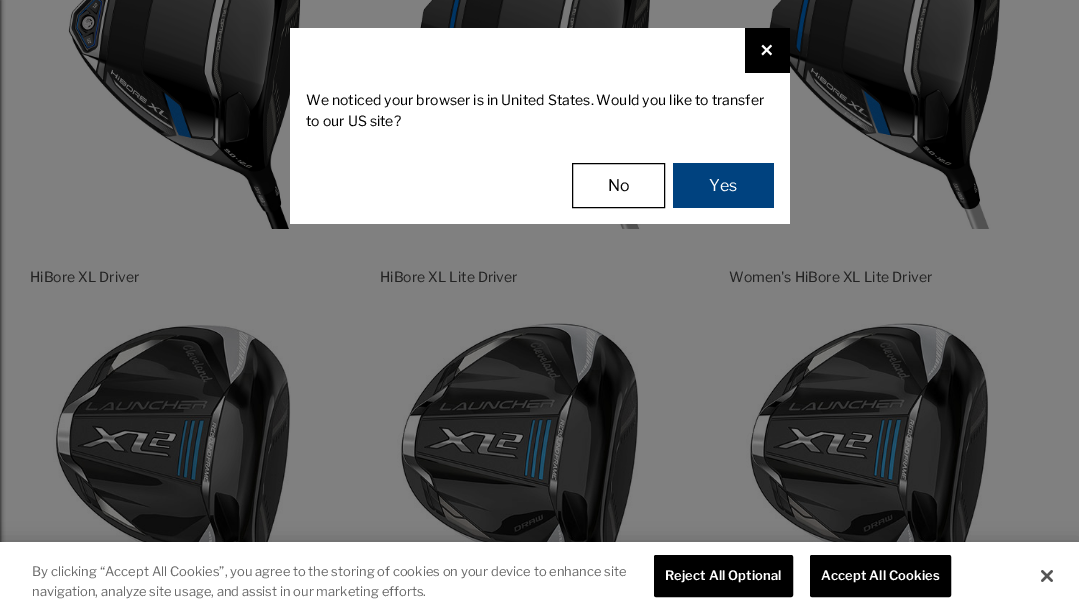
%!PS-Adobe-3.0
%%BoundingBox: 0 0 1079 613
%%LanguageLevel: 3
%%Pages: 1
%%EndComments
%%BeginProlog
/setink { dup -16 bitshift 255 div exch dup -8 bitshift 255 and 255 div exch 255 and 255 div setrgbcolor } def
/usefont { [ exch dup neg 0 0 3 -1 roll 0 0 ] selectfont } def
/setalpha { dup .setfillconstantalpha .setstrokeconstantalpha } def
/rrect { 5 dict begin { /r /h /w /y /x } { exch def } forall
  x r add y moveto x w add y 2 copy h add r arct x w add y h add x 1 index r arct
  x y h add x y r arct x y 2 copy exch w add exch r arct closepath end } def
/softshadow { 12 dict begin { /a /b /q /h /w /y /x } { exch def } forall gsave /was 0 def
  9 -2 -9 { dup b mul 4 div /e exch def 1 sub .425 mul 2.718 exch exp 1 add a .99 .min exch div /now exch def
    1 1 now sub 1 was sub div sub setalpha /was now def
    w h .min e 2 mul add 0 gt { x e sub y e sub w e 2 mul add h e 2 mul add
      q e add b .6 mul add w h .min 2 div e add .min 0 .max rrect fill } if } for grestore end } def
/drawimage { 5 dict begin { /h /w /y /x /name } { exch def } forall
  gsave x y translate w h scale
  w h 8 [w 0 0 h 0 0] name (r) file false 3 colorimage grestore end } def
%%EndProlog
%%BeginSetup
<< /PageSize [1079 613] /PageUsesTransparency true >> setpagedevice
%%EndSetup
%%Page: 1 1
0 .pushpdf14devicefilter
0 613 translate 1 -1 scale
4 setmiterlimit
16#808080 setink
0 0 1079 613 rectfill
(img1.raw) 68 0 233 229 drawimage
(img2.raw) 420 0 230 229 drawimage
(img3.raw) 769 0 231 229 drawimage
16#FFFFFF setink
290 28 500 196 rectfill
16#000000 setink
745 28 45 45 rectfill
/LibreFranklin-SemiBold 24 usefont
16#FFFFFF setink
760 59 moveto (×) show
/LibreFranklin-Regular 14 usefont
16#000000 setink
306 105 moveto (We noticed your browser is in United States. Would you like to transfer) show
306 126 moveto (to our US site?) show
572.5 163.5 92 44 rectstroke
/LibreFranklin-Regular 16 usefont
608 191 moveto (No) show
16#00427F setink
673 163 101 45 rectfill
16#FFFFFF setink
709 191 moveto (Yes) show
16#000000 setink
-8 0 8 613 0 2.5 1 softshadow
/LibreFranklin-Regular 14 usefont
16#222222 setink
[
    [(HiBore XL Driver) 30 282]
    [(HiBore XL Lite Driver) 380 282]
    [(Women's HiBore XL Lite Driver) 729 282]
] { aload pop moveto show } forall
(img4.raw) 42 325 249 217 drawimage
(img5.raw) 392 323 246 219 drawimage
(img6.raw) 741 323 247 219 drawimage
16#000000 setink
0 542 1079 71 0 9 0.2 softshadow
16#FFFFFF setink
0 542 1079 71 rectfill
/LibreFranklin-Regular 13 usefont
16#696969 setink
32 576 moveto (By clicking “Accept All Cookies”, you agree to the storing of cookies on your device to enhance site) show
32 596 moveto (navigation, analyze site usage, and assist in our marketing efforts.) show
16#000000 setink
654.5 555.5 138 41 1.5 rrect gsave fill grestore
stroke
/LibreFranklin-SemiBold 13 usefont
16#FFFFFF setink
665 580 moveto 0.1 0 (Reject All Optional) ashow
16#000000 setink
810.5 555.5 140 41 1.5 rrect gsave fill grestore
stroke
16#FFFFFF setink
821 580 moveto 0.1 0 (Accept All Cookies) ashow
(img7.raw) 1041 570 12 12 drawimage
.poppdf14devicefilter showpage
%%EOF
